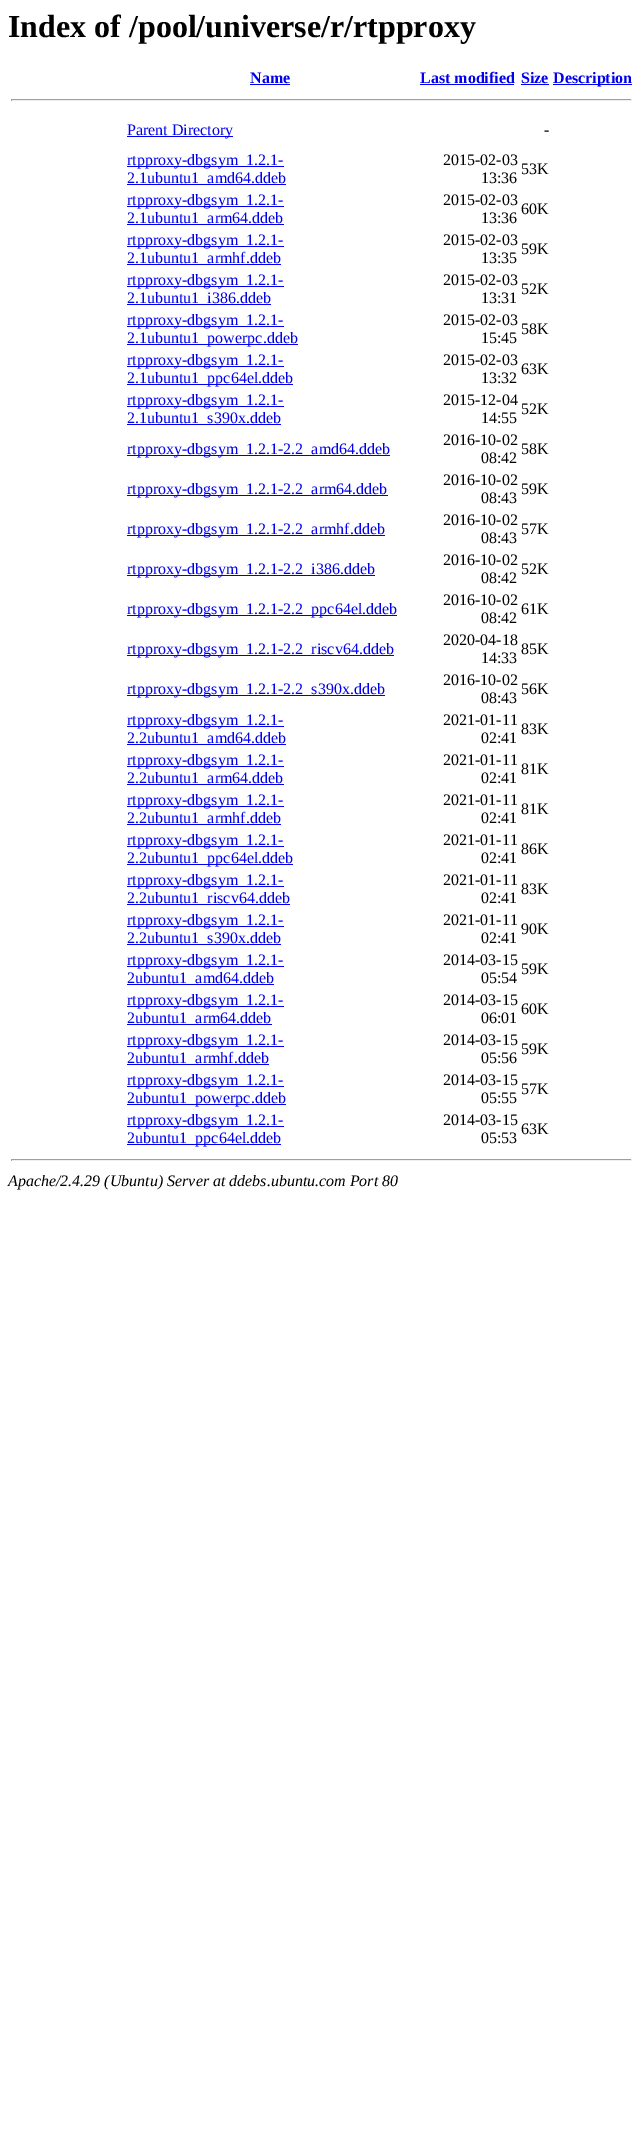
%!PS-Adobe-3.0
%%BoundingBox: 0 0 643 2146
%%LanguageLevel: 3
%%Pages: 1
%%EndComments
%%BeginProlog
/setink { dup -16 bitshift 255 div exch dup -8 bitshift 255 and 255 div exch 255 and 255 div setrgbcolor } def
/usefont { [ exch dup neg 0 0 3 -1 roll 0 0 ] selectfont } def
%%EndProlog
%%BeginSetup
<< /PageSize [643 2146] >> setpagedevice
%%EndSetup
%%Page: 1 1
0 2146 translate 1 -1 scale
4 setmiterlimit
16#FFFFFF setink
0 0 643 2146 rectfill
/LiberationSerif-Bold 32 usefont
16#000000 setink
8 37 moveto (Index of /pool/universe/r/rtpproxy) show
/LiberationSerif-Bold 16 usefont
16#0000EE setink
250 83 moveto (Name) show
250 84 40 1 rectfill
420 83 moveto (Last modified) show
420 84 94 1 rectfill
521 83 moveto (Size) show
521 84 28 1 rectfill
553 84 79 1 rectfill
553 83 moveto (Description) show
[
    [11 99 621 1 16#9F9F9F]
    [631 99 1 2 16#EEEEEE]
    [11 100 621 1 16#EEEEEE]
    [11 99 1 2 16#9F9F9F]
    [127 136 106 1 16#0000EE]
] { aload pop setink rectfill } forall
/LiberationSerif-Regular 16 usefont
127 135 moveto (Parent Directory) show
16#000000 setink
544 135 moveto (-) show
16#0000EE setink
127 166 157 1 rectfill
127 165 moveto (rtpproxy-dbgsym_1.2.1-) show
127 184 159 1 rectfill
127 183 moveto (2.1ubuntu1_amd64.ddeb) show
16#000000 setink
[
    [(2015-02-03) 443 165]
    [(13:36) 481 183]
    [(53K) 521 174]
] { aload pop moveto show } forall
16#0000EE setink
127 206 157 1 rectfill
127 205 moveto (rtpproxy-dbgsym_1.2.1-) show
127 224 157 1 rectfill
127 223 moveto (2.1ubuntu1_arm64.ddeb) show
16#000000 setink
[
    [(2015-02-03) 443 205]
    [(13:36) 481 223]
    [(60K) 521 214]
] { aload pop moveto show } forall
16#0000EE setink
127 246 157 1 rectfill
127 245 moveto (rtpproxy-dbgsym_1.2.1-) show
127 264 154 1 rectfill
127 263 moveto (2.1ubuntu1_armhf.ddeb) show
16#000000 setink
[
    [(2015-02-03) 443 245]
    [(13:35) 481 263]
    [(59K) 521 254]
] { aload pop moveto show } forall
16#0000EE setink
127 286 157 1 rectfill
127 285 moveto (rtpproxy-dbgsym_1.2.1-) show
127 304 144 1 rectfill
127 303 moveto (2.1ubuntu1_i386.ddeb) show
16#000000 setink
[
    [(2015-02-03) 443 285]
    [(13:31) 481 303]
    [(52K) 521 294]
] { aload pop moveto show } forall
16#0000EE setink
127 326 157 1 rectfill
127 325 moveto (rtpproxy-dbgsym_1.2.1-) show
127 344 171 1 rectfill
127 343 moveto (2.1ubuntu1_powerpc.ddeb) show
16#000000 setink
[
    [(2015-02-03) 443 325]
    [(15:45) 481 343]
    [(58K) 521 334]
] { aload pop moveto show } forall
16#0000EE setink
127 366 157 1 rectfill
127 365 moveto (rtpproxy-dbgsym_1.2.1-) show
127 384 166 1 rectfill
127 383 moveto (2.1ubuntu1_ppc64el.ddeb) show
16#000000 setink
[
    [(2015-02-03) 443 365]
    [(13:32) 481 383]
    [(63K) 521 374]
] { aload pop moveto show } forall
16#0000EE setink
127 406 157 1 rectfill
127 405 moveto (rtpproxy-dbgsym_1.2.1-) show
127 424 154 1 rectfill
127 423 moveto (2.1ubuntu1_s390x.ddeb) show
16#000000 setink
[
    [(2015-12-04) 443 405]
    [(14:55) 481 423]
    [(52K) 521 414]
] { aload pop moveto show } forall
16#0000EE setink
127 455 263 1 rectfill
127 454 moveto (rtpproxy-dbgsym_1.2.1-2.2_amd64.ddeb) show
16#000000 setink
[
    [(2016-10-02) 443 445]
    [(08:42) 481 463]
    [(58K) 521 454]
] { aload pop moveto show } forall
16#0000EE setink
127 495 261 1 rectfill
127 494 moveto (rtpproxy-dbgsym_1.2.1-2.2_arm64.ddeb) show
16#000000 setink
[
    [(2016-10-02) 443 485]
    [(08:43) 481 503]
    [(59K) 521 494]
] { aload pop moveto show } forall
16#0000EE setink
127 535 258 1 rectfill
127 534 moveto (rtpproxy-dbgsym_1.2.1-2.2_armhf.ddeb) show
16#000000 setink
[
    [(2016-10-02) 443 525]
    [(08:43) 481 543]
    [(57K) 521 534]
] { aload pop moveto show } forall
16#0000EE setink
127 575 248 1 rectfill
127 574 moveto (rtpproxy-dbgsym_1.2.1-2.2_i386.ddeb) show
16#000000 setink
[
    [(2016-10-02) 443 565]
    [(08:42) 481 583]
    [(52K) 521 574]
] { aload pop moveto show } forall
16#0000EE setink
127 615 270 1 rectfill
127 614 moveto (rtpproxy-dbgsym_1.2.1-2.2_ppc64el.ddeb) show
16#000000 setink
[
    [(2016-10-02) 443 605]
    [(08:42) 481 623]
    [(61K) 521 614]
] { aload pop moveto show } forall
16#0000EE setink
127 655 267 1 rectfill
127 654 moveto (rtpproxy-dbgsym_1.2.1-2.2_riscv64.ddeb) show
16#000000 setink
[
    [(2020-04-18) 443 645]
    [(14:33) 481 663]
    [(85K) 521 654]
] { aload pop moveto show } forall
16#0000EE setink
127 695 258 1 rectfill
127 694 moveto (rtpproxy-dbgsym_1.2.1-2.2_s390x.ddeb) show
16#000000 setink
[
    [(2016-10-02) 443 685]
    [(08:43) 481 703]
    [(56K) 521 694]
] { aload pop moveto show } forall
16#0000EE setink
127 726 157 1 rectfill
127 725 moveto (rtpproxy-dbgsym_1.2.1-) show
127 744 159 1 rectfill
127 743 moveto (2.2ubuntu1_amd64.ddeb) show
16#000000 setink
[
    [(2021-01-11) 443 725]
    [(02:41) 481 743]
    [(83K) 521 734]
] { aload pop moveto show } forall
16#0000EE setink
127 766 157 1 rectfill
127 765 moveto (rtpproxy-dbgsym_1.2.1-) show
127 784 157 1 rectfill
127 783 moveto (2.2ubuntu1_arm64.ddeb) show
16#000000 setink
[
    [(2021-01-11) 443 765]
    [(02:41) 481 783]
    [(81K) 521 774]
] { aload pop moveto show } forall
16#0000EE setink
127 806 157 1 rectfill
127 805 moveto (rtpproxy-dbgsym_1.2.1-) show
127 824 154 1 rectfill
127 823 moveto (2.2ubuntu1_armhf.ddeb) show
16#000000 setink
[
    [(2021-01-11) 443 805]
    [(02:41) 481 823]
    [(81K) 521 814]
] { aload pop moveto show } forall
16#0000EE setink
127 846 157 1 rectfill
127 845 moveto (rtpproxy-dbgsym_1.2.1-) show
127 864 166 1 rectfill
127 863 moveto (2.2ubuntu1_ppc64el.ddeb) show
16#000000 setink
[
    [(2021-01-11) 443 845]
    [(02:41) 481 863]
    [(86K) 521 854]
] { aload pop moveto show } forall
16#0000EE setink
127 886 157 1 rectfill
127 885 moveto (rtpproxy-dbgsym_1.2.1-) show
127 904 163 1 rectfill
127 903 moveto (2.2ubuntu1_riscv64.ddeb) show
16#000000 setink
[
    [(2021-01-11) 443 885]
    [(02:41) 481 903]
    [(83K) 521 894]
] { aload pop moveto show } forall
16#0000EE setink
127 926 157 1 rectfill
127 925 moveto (rtpproxy-dbgsym_1.2.1-) show
127 944 154 1 rectfill
127 943 moveto (2.2ubuntu1_s390x.ddeb) show
16#000000 setink
[
    [(2021-01-11) 443 925]
    [(02:41) 481 943]
    [(90K) 521 934]
] { aload pop moveto show } forall
16#0000EE setink
127 966 157 1 rectfill
127 965 moveto (rtpproxy-dbgsym_1.2.1-) show
127 984 147 1 rectfill
127 983 moveto (2ubuntu1_amd64.ddeb) show
16#000000 setink
[
    [(2014-03-15) 443 965]
    [(05:54) 481 983]
    [(59K) 521 974]
] { aload pop moveto show } forall
16#0000EE setink
127 1006 157 1 rectfill
127 1005 moveto (rtpproxy-dbgsym_1.2.1-) show
127 1024 145 1 rectfill
127 1023 moveto (2ubuntu1_arm64.ddeb) show
16#000000 setink
[
    [(2014-03-15) 443 1005]
    [(06:01) 481 1023]
    [(60K) 521 1014]
] { aload pop moveto show } forall
16#0000EE setink
127 1046 157 1 rectfill
127 1045 moveto (rtpproxy-dbgsym_1.2.1-) show
127 1064 142 1 rectfill
127 1063 moveto (2ubuntu1_armhf.ddeb) show
16#000000 setink
[
    [(2014-03-15) 443 1045]
    [(05:56) 481 1063]
    [(59K) 521 1054]
] { aload pop moveto show } forall
16#0000EE setink
127 1086 157 1 rectfill
127 1085 moveto (rtpproxy-dbgsym_1.2.1-) show
127 1104 159 1 rectfill
127 1103 moveto (2ubuntu1_powerpc.ddeb) show
16#000000 setink
[
    [(2014-03-15) 443 1085]
    [(05:55) 481 1103]
    [(57K) 521 1094]
] { aload pop moveto show } forall
16#0000EE setink
127 1126 157 1 rectfill
127 1125 moveto (rtpproxy-dbgsym_1.2.1-) show
127 1144 154 1 rectfill
127 1143 moveto (2ubuntu1_ppc64el.ddeb) show
16#000000 setink
[
    [(2014-03-15) 443 1125]
    [(05:53) 481 1143]
    [(63K) 521 1134]
] { aload pop moveto show } forall
[
    [11 1159 621 1 16#9F9F9F]
    [631 1159 1 2 16#EEEEEE]
    [11 1160 621 1 16#EEEEEE]
    [11 1159 1 2 16#9F9F9F]
] { aload pop setink rectfill } forall
/LiberationSerif-Italic 16 usefont
16#000000 setink
8 1186 moveto (Apache/2.4.29 \(Ubuntu\) Server at ddebs.ubuntu.com Port 80) show
showpage
%%EOF
